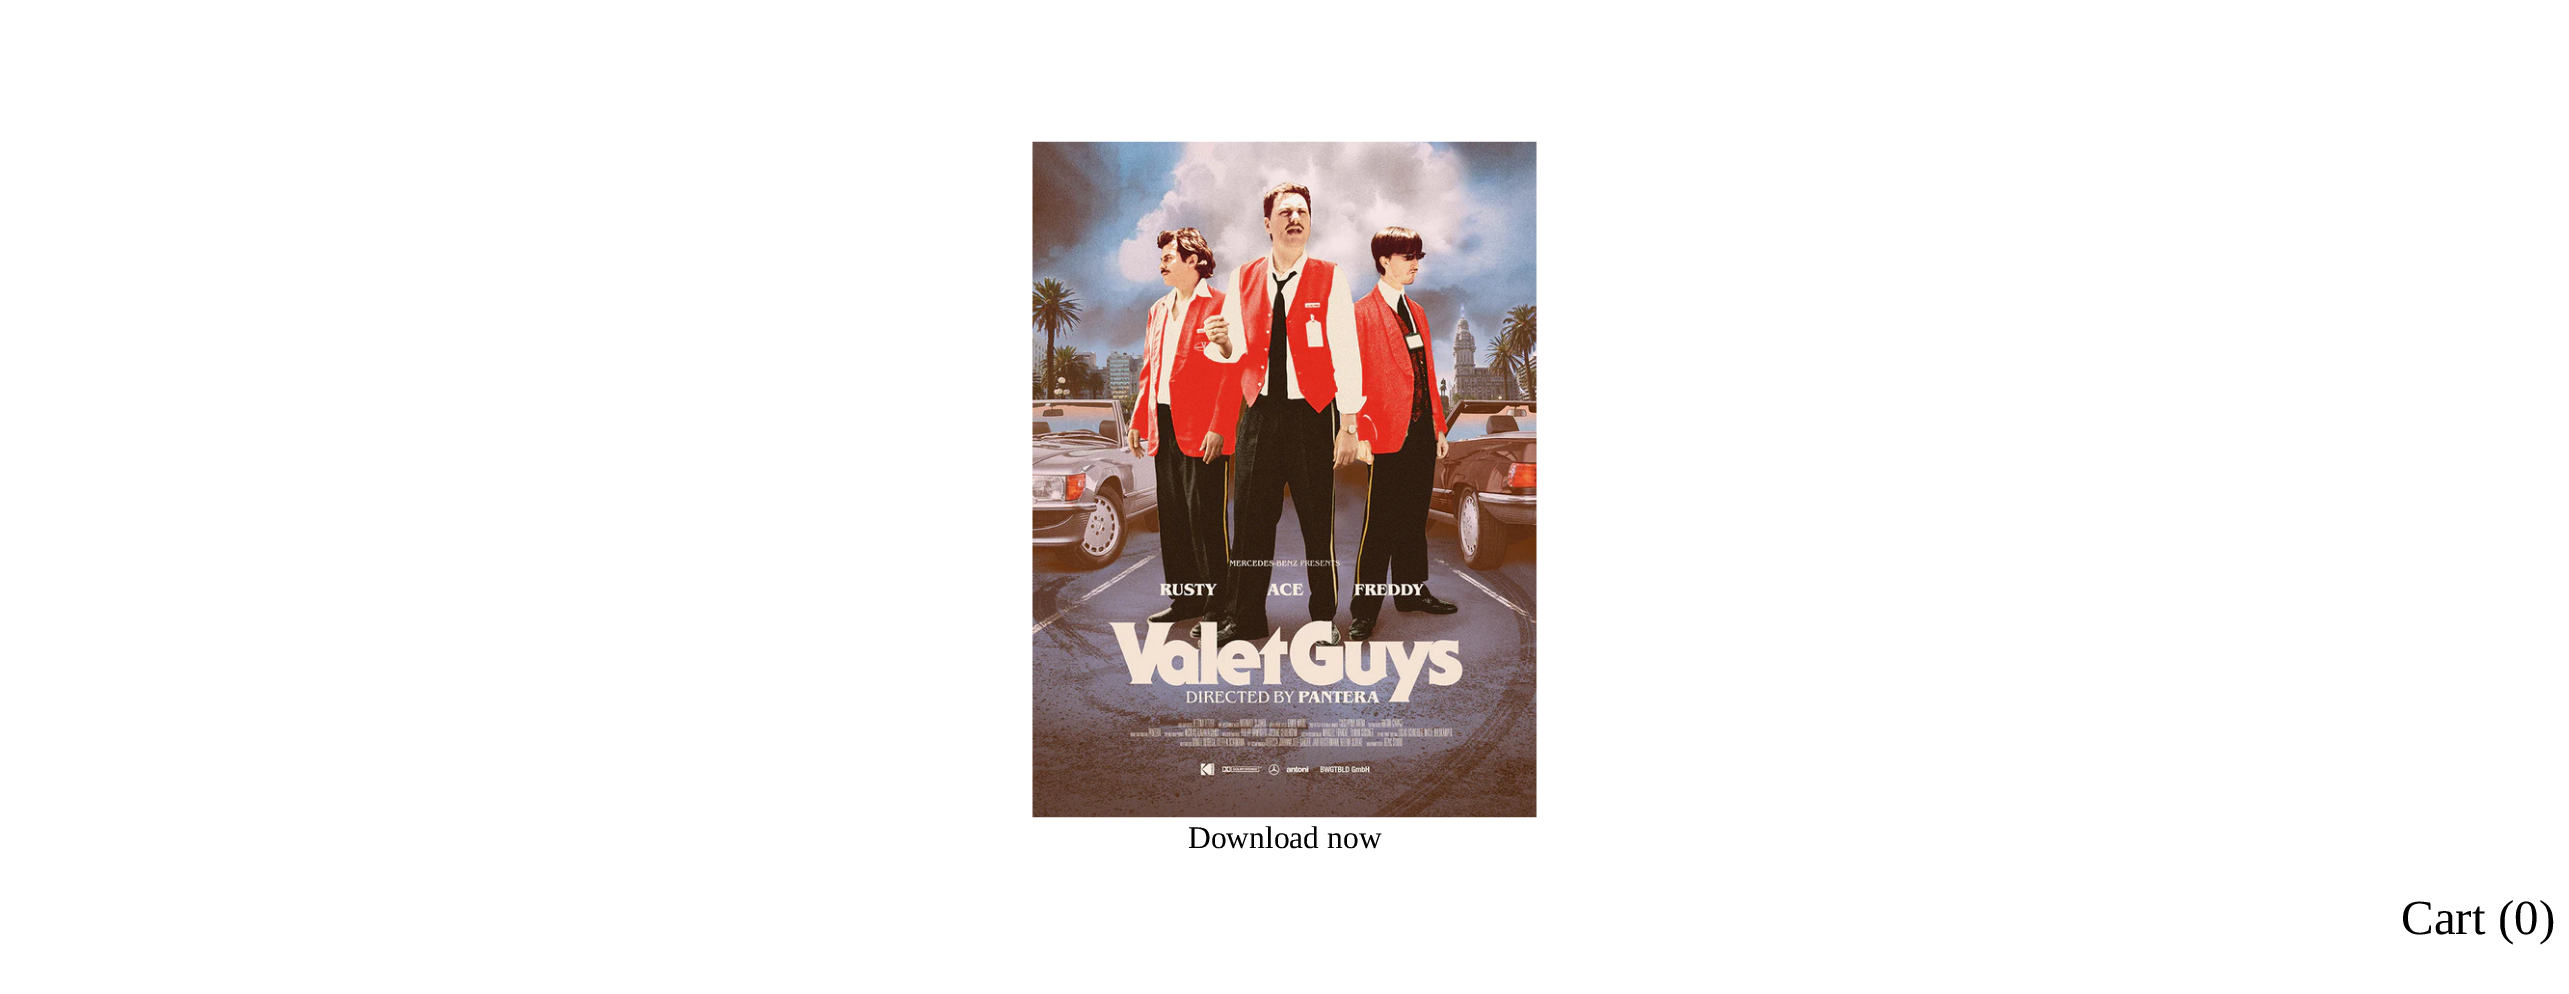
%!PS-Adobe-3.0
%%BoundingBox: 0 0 2569 994
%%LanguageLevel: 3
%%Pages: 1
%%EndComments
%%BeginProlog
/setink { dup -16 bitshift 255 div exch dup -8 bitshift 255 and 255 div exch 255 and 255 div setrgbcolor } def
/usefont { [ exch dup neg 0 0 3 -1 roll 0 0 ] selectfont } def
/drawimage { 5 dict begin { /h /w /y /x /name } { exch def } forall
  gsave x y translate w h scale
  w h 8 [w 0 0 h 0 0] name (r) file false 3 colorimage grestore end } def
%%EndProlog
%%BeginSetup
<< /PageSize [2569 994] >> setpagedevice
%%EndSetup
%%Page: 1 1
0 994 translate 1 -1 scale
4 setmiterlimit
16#FFFFFF setink
0 0 2569 994 rectfill
(img1.raw) 1032 141 505 677 drawimage
/LiberationSerif-Regular 31.5 usefont
16#000000 setink
1188 848 moveto (Download now) show
/LiberationSerif-Regular 49 usefont
2401 934 moveto (Cart \() show
2514 934 moveto (0\)) show
showpage
%%EOF
